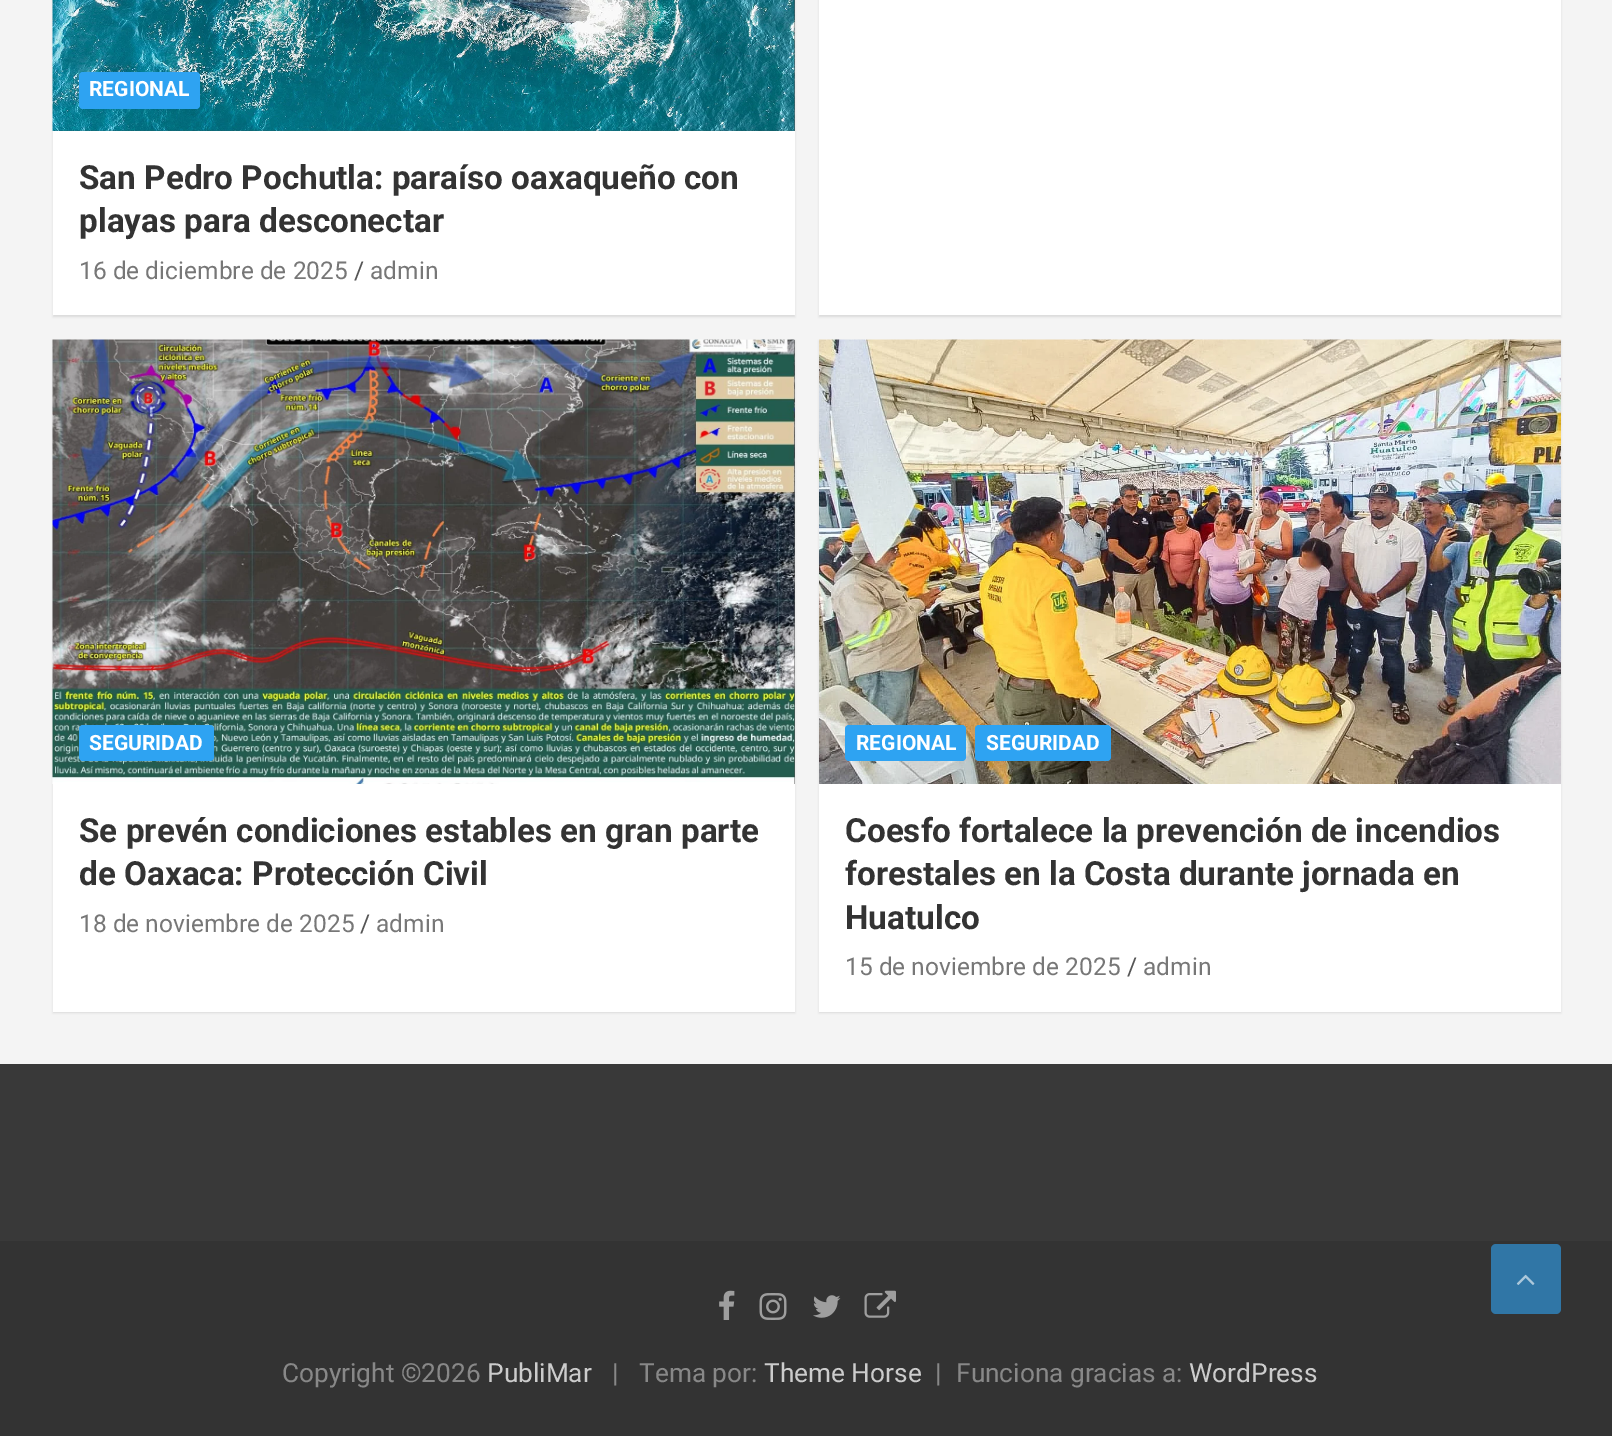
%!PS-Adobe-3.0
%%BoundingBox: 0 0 1612 1436
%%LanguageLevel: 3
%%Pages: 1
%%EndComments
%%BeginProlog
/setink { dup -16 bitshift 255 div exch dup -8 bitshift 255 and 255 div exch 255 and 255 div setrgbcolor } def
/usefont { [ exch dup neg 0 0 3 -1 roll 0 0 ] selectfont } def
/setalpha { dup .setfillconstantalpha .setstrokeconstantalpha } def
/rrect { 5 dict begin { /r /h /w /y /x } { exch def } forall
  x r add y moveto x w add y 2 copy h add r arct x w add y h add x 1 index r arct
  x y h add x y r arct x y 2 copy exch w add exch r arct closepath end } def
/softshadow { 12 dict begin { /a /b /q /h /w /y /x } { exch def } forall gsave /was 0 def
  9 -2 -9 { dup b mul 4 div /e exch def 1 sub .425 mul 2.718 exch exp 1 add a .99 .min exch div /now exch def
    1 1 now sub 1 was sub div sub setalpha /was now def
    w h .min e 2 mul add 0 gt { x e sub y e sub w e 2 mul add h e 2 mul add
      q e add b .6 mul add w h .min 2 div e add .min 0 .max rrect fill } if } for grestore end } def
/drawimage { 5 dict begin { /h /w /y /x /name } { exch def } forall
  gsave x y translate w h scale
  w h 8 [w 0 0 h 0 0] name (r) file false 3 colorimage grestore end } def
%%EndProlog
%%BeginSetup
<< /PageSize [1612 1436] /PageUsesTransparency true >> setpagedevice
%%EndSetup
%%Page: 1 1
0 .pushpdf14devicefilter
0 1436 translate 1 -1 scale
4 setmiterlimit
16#F4F4F4 setink
0 0 1612 1436 rectfill
16#000000 setink
53 -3 742 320 0 1 0.1 softshadow
16#FFFFFF setink
53 131 742 184 rectfill
16#555555 setink
53 0 742 131 rectfill
(img1.raw) 52 0 743 131 drawimage
16#2EA3F2 setink
79 72 121 37 4 rrect fill
/Roboto-Bold 21 usefont
16#FFFFFF setink
89 96 moveto (REGIONAL) show
/Roboto-Bold 33.25 usefont
16#333333 setink
79 189 moveto (San Pedro Pochutla: paraíso oaxaqueño con) show
79 232 moveto (playas para desconectar) show
/Roboto-Regular 24.5 usefont
16#777777 setink
79 279 moveto (16 de diciembre de 2025) show
16#555555 setink
354 279 moveto (/) show
16#777777 setink
370 279 moveto (admin) show
16#000000 setink
819 -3 742 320 0 1 0.1 softshadow
16#FFFFFF setink
819 0 742 315 rectfill
16#000000 setink
53 341 742 672 0 1 0.1 softshadow
16#FFFFFF setink
53 784 742 228 rectfill
16#555555 setink
794 340 1 444 rectfill
(img2.raw) 52 339 743 445 drawimage
16#2EA3F2 setink
79 725 135 36 4 rrect fill
/Roboto-Bold 21 usefont
16#FFFFFF setink
89 750 moveto (SEGURIDAD) show
/Roboto-Bold 33.25 usefont
16#333333 setink
79 842 moveto (Se prevén condiciones estables en gran parte) show
79 885 moveto (de Oaxaca: Protección Civil) show
/Roboto-Regular 24.5 usefont
16#777777 setink
79 932 moveto (18 de noviembre de 2025) show
16#555555 setink
360 932 moveto (/) show
16#777777 setink
376 932 moveto (admin) show
16#000000 setink
819 341 742 672 0 1 0.1 softshadow
16#FFFFFF setink
819 784 742 228 rectfill
(img3.raw) 819 339 742 445 drawimage
16#2EA3F2 setink
845 725 121 36 4 rrect fill
/Roboto-Bold 21 usefont
16#FFFFFF setink
856 750 moveto (REGIONAL) show
16#2EA3F2 setink
975 725 136 36 4 rrect fill
16#FFFFFF setink
986 750 moveto (SEGURIDAD) show
/Roboto-Bold 33.25 usefont
16#333333 setink
[
    [(Coesfo fortalece la prevención de incendios) 845 842]
    [(forestales en la Costa durante jornada en) 845 885]
    [(Huatulco) 845 929]
] { aload pop moveto show } forall
/Roboto-Regular 24.5 usefont
16#777777 setink
845 975 moveto (15 de noviembre de 2025) show
16#555555 setink
1127 975 moveto (/) show
16#777777 setink
1143 975 moveto (admin) show
16#393939 setink
0 1064 1612 177 rectfill
16#333333 setink
0 1241 1612 195 rectfill
(img4.raw) 719 1290 16 30 drawimage
(img5.raw) 759 1293 28 27 drawimage
(img6.raw) 813 1295 28 23 drawimage
(img7.raw) 864 1290 32 28 drawimage
/Roboto-Regular 26.25 usefont
16#888888 setink
282 1382 moveto (Copyright ©2026) show
16#CCCCCC setink
487 1382 moveto (PubliMar) show
16#888888 setink
612 1382 moveto (|) show
639 1382 moveto (Tema por:) show
16#CCCCCC setink
764 1382 moveto (Theme Horse) show
16#888888 setink
935 1382 moveto (|) show
956 1382 moveto (Funciona gracias a:) show
16#CCCCCC setink
1189 1382 moveto (WordPress) show
16#3076A6 setink
1491 1244 70 70 5 rrect fill
(img8.raw) 1516 1274 19 11 drawimage
.poppdf14devicefilter showpage
%%EOF
